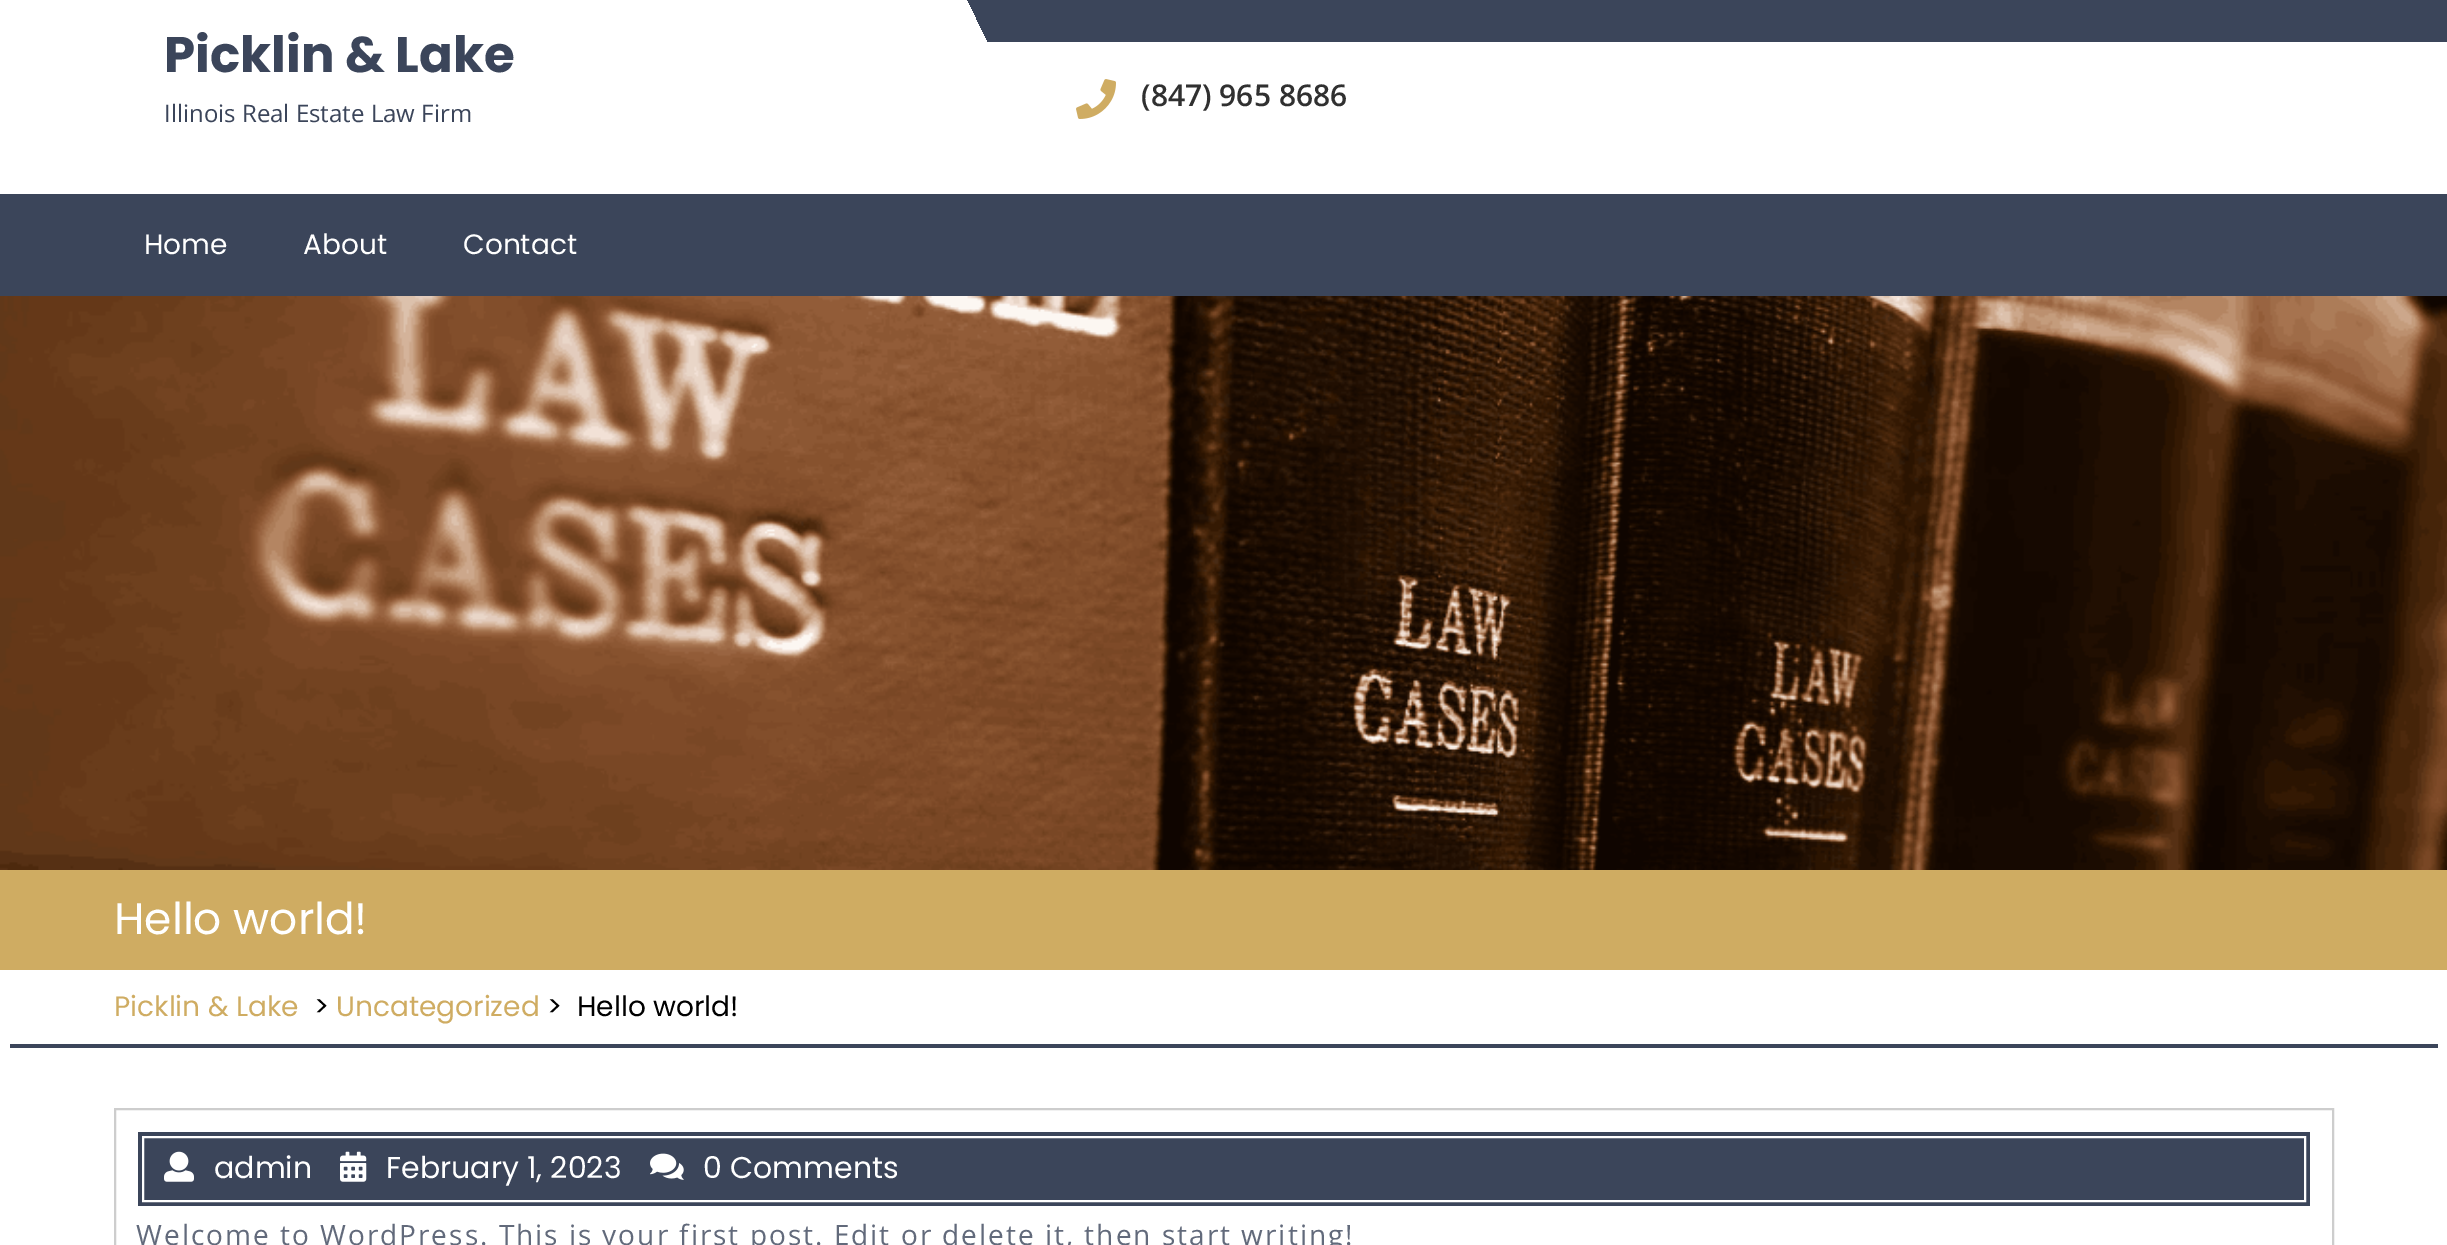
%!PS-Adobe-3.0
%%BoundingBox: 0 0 2447 1245
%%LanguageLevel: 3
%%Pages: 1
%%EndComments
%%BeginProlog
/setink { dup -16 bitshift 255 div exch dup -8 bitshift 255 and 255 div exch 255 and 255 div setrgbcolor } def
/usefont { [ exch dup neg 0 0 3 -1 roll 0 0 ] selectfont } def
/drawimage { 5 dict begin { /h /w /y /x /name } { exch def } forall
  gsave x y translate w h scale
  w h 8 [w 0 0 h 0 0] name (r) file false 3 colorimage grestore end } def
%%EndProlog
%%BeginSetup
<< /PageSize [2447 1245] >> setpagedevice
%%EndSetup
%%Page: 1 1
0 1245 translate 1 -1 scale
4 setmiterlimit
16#FFFFFF setink
0 0 2447 1245 rectfill
gsave 967 0 moveto 2447 0 lineto 2447 42 lineto 967 42 lineto closepath clip newpath
<< /ShadingType 2 /ColorSpace /DeviceRGB /Coords [227 507 2221 -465] /Extend [true true] /Function << /FunctionType 3 /Domain [0 1] /Functions [<< /FunctionType 2 /Domain [0 1] /C0 [1 1 1] /C1 [1 1 1] /N 1 >> << /FunctionType 2 /Domain [0 1] /C0 [0.231 0.271 0.353] /C1 [0.231 0.271 0.353] /N 1 >>] /Bounds [0.4] /Encode [0 1 0 1] >> >> shfill grestore
/Poppins-Bold 50 usefont
16#3B455A setink
164 72 moveto (Picklin & Lake) show
/OpenSans-Regular 24 usefont
164 122 moveto (Illinois Real Estate Law Firm) show
(img1.raw) 1076 79 40 40 drawimage
/OpenSans-SemiBold 30 usefont
16#303030 setink
1141 106 moveto (\(847\) 965 8686) show
16#3B455A setink
0 194 2447 102 rectfill
/Poppins-Regular 28 usefont
16#FFFFFF setink
[
    [(Home) 144 254]
    [(About) 303 254]
    [(Contact) 463 254]
] { aload pop moveto show } forall
(img2.raw) 0 296 2447 574 drawimage
16#CFAC62 setink
0 870 2447 100 rectfill
/Poppins-Regular 44 usefont
16#FFFFFF setink
114 934 moveto (Hello world!) show
16#3B455A setink
10 1044 2428 4 rectfill
/Poppins-Regular 28 usefont
16#CFAC62 setink
114 1016 moveto (Picklin & Lake) show
16#000000 setink
314 1016 moveto (>) show
16#CFAC62 setink
336 1016 moveto (Uncategorized) show
16#000000 setink
547 1016 moveto (>) show
577 1016 moveto (Hello world!) show
16#CDCDCD setink
2 setlinewidth
115 1109 2218 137 rectstroke
16#3B455A setink
138 1132 2172 74 rectfill
16#FFFFFF setink
143 1137 2162 64 rectstroke
(img3.raw) 164 1151 30 31 drawimage
/Poppins-Regular 30 usefont
214 1178 moveto (admin) show
(img4.raw) 340 1151 27 31 drawimage
386 1178 moveto (February 1, 2023) show
(img5.raw) 650 1153 34 27 drawimage
703 1178 moveto (0 Comments) show
/OpenSans-Regular 28 usefont
16#626A7B setink
136 1245 moveto 2 0 (Welcome to WordPress. This is your first post. Edit or delete it, then start writing!) ashow
showpage
%%EOF
